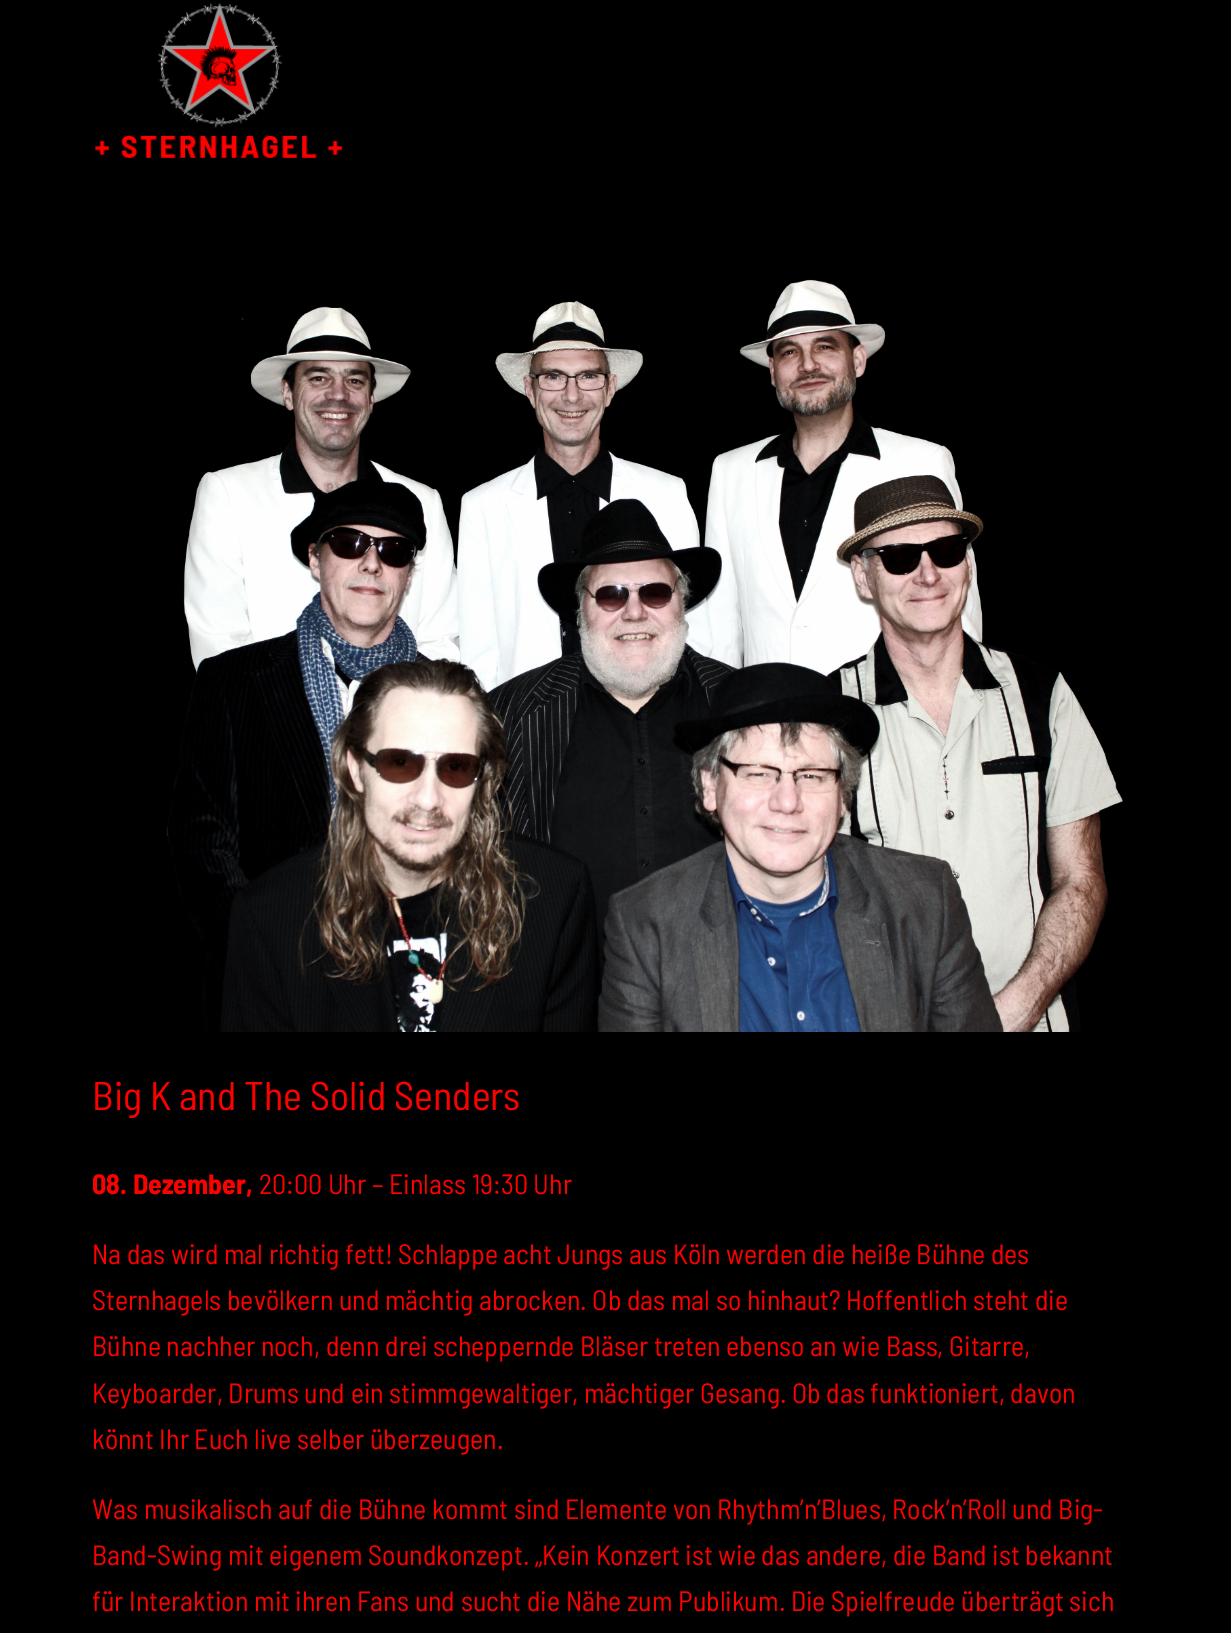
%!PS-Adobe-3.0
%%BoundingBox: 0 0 1231 1633
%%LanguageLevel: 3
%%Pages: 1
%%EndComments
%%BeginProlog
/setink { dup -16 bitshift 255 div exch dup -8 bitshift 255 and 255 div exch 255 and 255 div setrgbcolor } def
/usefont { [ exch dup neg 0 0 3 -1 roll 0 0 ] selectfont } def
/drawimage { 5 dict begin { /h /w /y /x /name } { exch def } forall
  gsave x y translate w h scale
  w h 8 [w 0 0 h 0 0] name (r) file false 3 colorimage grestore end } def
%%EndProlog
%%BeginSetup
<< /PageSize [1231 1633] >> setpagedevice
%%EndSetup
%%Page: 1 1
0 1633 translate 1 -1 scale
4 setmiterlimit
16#000000 setink
0 0 1231 1633 rectfill
(img1.raw) 95 3 248 155 drawimage
(img2.raw) 166 279 957 753 drawimage
/BarlowSemiCondensed-Regular 40 usefont
16#FF0000 setink
92 1110 moveto (Big K and The Solid Senders) show
/BarlowSemiCondensed-Bold 28 usefont
92 1194 moveto (08. Dezember,) show
/BarlowSemiCondensed-Regular 28 usefont
[
    [(20:00 Uhr – Einlass 19:30 Uhr) 259 1194]
    [(Na das wird mal richtig fett! Schlappe acht Jungs aus Köln werden die heiße Bühne des) 92 1264]
    [(Sternhagels bevölkern und mächtig abrocken. Ob das mal so hinhaut? Hoffentlich steht die) 92 1310]
    [(Bühne nachher noch, denn drei scheppernde Bläser treten ebenso an wie Bass, Gitarre,) 92 1356]
    [(Keyboarder, Drums und ein stimmgewaltiger, mächtiger Gesang. Ob das funktioniert, davon) 92 1403]
    [(könnt Ihr Euch live selber überzeugen.) 92 1449]
    [(Was musikalisch auf die Bühne kommt sind Elemente von Rhythm’n’Blues, Rock’n’Roll und Big-) 92 1519]
    [(Band-Swing mit eigenem Soundkonzept. „Kein Konzert ist wie das andere, die Band ist bekannt) 92 1565]
    [(für Interaktion mit ihren Fans und sucht die Nähe zum Publikum. Die Spielfreude überträgt sich) 92 1611]
] { aload pop moveto show } forall
showpage
%%EOF
